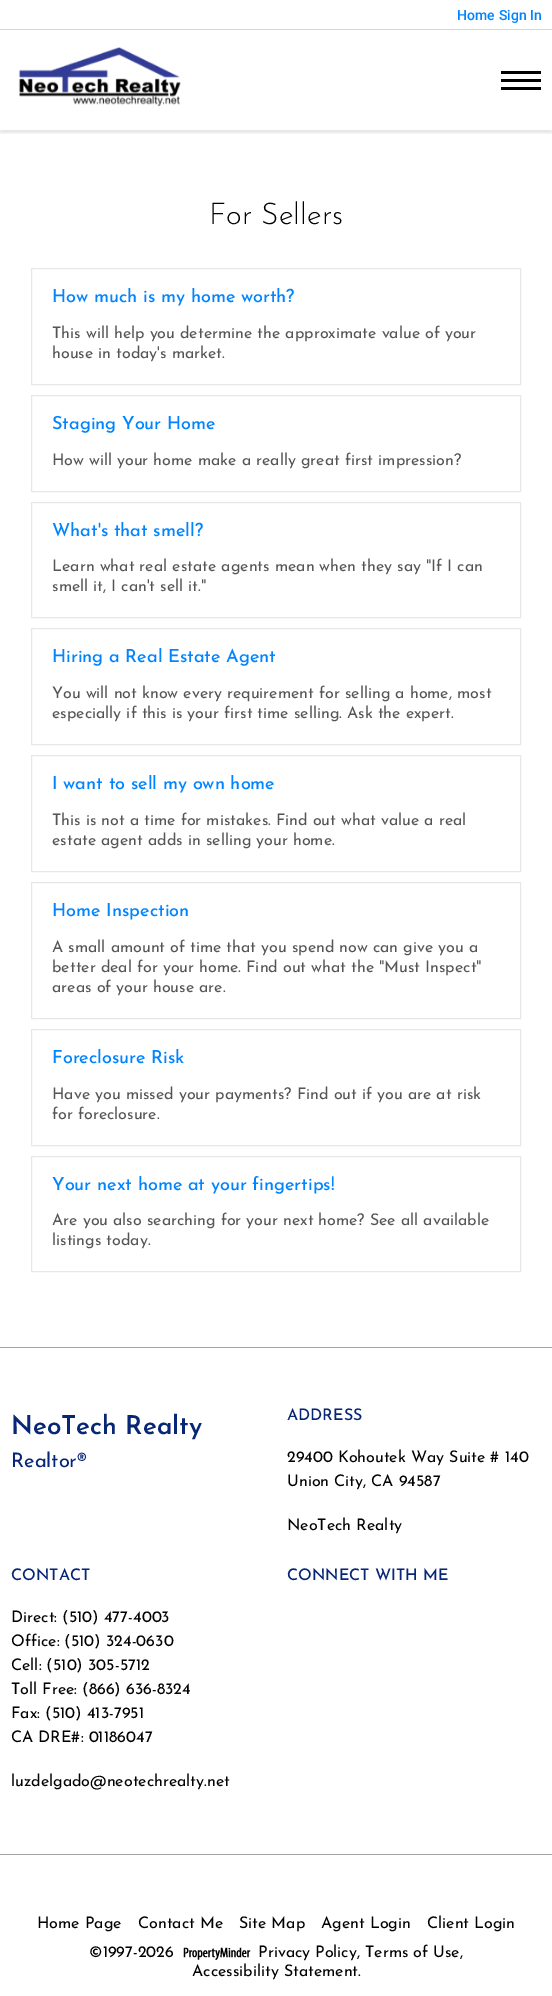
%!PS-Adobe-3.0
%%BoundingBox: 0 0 552 1996
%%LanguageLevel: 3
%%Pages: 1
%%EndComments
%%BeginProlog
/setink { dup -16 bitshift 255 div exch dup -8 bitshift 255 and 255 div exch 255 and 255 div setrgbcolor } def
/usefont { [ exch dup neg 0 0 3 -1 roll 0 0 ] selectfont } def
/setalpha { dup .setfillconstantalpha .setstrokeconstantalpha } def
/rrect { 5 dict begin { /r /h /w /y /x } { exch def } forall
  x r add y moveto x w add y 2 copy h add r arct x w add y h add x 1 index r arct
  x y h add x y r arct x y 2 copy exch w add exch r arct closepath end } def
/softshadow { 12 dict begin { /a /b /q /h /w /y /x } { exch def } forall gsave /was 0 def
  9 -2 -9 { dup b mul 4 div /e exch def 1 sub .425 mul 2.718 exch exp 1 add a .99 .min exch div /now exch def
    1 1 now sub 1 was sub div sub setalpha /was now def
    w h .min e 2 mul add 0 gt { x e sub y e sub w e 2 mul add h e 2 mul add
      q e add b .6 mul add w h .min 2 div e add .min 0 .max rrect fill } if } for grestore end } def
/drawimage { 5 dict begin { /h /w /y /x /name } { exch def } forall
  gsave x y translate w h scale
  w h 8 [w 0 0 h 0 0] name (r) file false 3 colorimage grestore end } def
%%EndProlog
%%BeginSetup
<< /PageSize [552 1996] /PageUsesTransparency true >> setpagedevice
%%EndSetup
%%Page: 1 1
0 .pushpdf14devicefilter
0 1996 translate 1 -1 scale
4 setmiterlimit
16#FFFFFF setink
0 0 552 1996 rectfill
gsave
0 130 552 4 rectclip
16#000000 setink
0 3 552 130 0 1.5 0.1 softshadow
grestore
(img1.raw) 18 47 163 60 drawimage
[
    [501 71 40 3 16#000000]
    [501 79 40 3 16#000000]
    [501 87 40 3 16#000000]
    [0 29 552 1 16#D6D6D6]
] { aload pop setink rectfill } forall
/Roboto-Medium 14 usefont
16#0084FF setink
457 20 moveto (Home) show
499 20 moveto (Sign In) show
/JosefinSans-Light 30 usefont
16#000000 setink
209 224 moveto (For Sellers) show
16#E7E7E7 setink
31.5 268.5 489 116 rectstroke
/JosefinSans-Medium 18 usefont
16#0084FF setink
52 302 moveto (How much is my home worth?) show
/JosefinSans-Regular 16 usefont
16#555555 setink
52 338 moveto (This will help you determine the approximate value of your) show
52 358 moveto (house in today's market.) show
16#E7E7E7 setink
31.5 395.5 489 96 rectstroke
/JosefinSans-Medium 18 usefont
16#0084FF setink
52 429 moveto (Staging Your Home) show
/JosefinSans-Regular 16 usefont
16#555555 setink
52 465 moveto (How will your home make a really great first impression?) show
16#E7E7E7 setink
31.5 502.5 489 115 rectstroke
/JosefinSans-Medium 18 usefont
16#0084FF setink
52 536 moveto (What's that smell?) show
/JosefinSans-Regular 16 usefont
16#555555 setink
52 571 moveto (Learn what real estate agents mean when they say "If I can) show
52 591 moveto (smell it, I can't sell it.") show
16#E7E7E7 setink
31.5 628.5 489 116 rectstroke
/JosefinSans-Medium 18 usefont
16#0084FF setink
52 662 moveto (Hiring a Real Estate Agent) show
/JosefinSans-Regular 16 usefont
16#555555 setink
52 698 moveto (You will not know every requirement for selling a home, most) show
52 718 moveto (especially if this is your first time selling. Ask the expert.) show
16#E7E7E7 setink
31.5 755.5 489 116 rectstroke
/JosefinSans-Medium 18 usefont
16#0084FF setink
52 789 moveto (I want to sell my own home) show
/JosefinSans-Regular 16 usefont
16#555555 setink
52 825 moveto (This is not a time for mistakes. Find out what value a real) show
52 845 moveto (estate agent adds in selling your home.) show
16#E7E7E7 setink
31.5 882.5 489 136 rectstroke
/JosefinSans-Medium 18 usefont
16#0084FF setink
52 916 moveto (Home Inspection) show
/JosefinSans-Regular 16 usefont
16#555555 setink
[
    [(A small amount of time that you spend now can give you a) 52 952]
    [(better deal for your home. Find out what the "Must Inspect") 52 972]
    [(areas of your house are.) 52 992]
] { aload pop moveto show } forall
16#E7E7E7 setink
31.5 1029.5 489 116 rectstroke
/JosefinSans-Medium 18 usefont
16#0084FF setink
52 1063 moveto (Foreclosure Risk) show
/JosefinSans-Regular 16 usefont
16#555555 setink
52 1099 moveto (Have you missed your payments? Find out if you are at risk) show
52 1119 moveto (for foreclosure.) show
16#E7E7E7 setink
31.5 1156.5 489 115 rectstroke
/JosefinSans-Medium 18 usefont
16#0084FF setink
52 1190 moveto (Your next home at your fingertips!) show
/JosefinSans-Regular 16 usefont
16#555555 setink
52 1225 moveto (Are you also searching for your next home? See all available) show
52 1245 moveto (listings today.) show
16#A3A3A3 setink
0 1347 552 1 rectfill
0 1854 552 1 rectfill
/JosefinSans-SemiBold 26 usefont
16#072676 setink
11 1434 moveto (NeoTech Realty) show
/JosefinSans-Regular 20 usefont
11 1467 moveto (Realtor®) show
/JosefinSans-Medium 16 usefont
287 1420 moveto (ADDRESS) show
/JosefinSans-Regular 16 usefont
16#000000 setink
[
    [(29400 Kohoutek Way Suite # 140) 287 1462]
    [(Union City, CA 94587) 287 1486]
    [(NeoTech Realty) 287 1530]
] { aload pop moveto show } forall
/JosefinSans-Medium 16 usefont
16#072676 setink
11 1580 moveto (CONTACT) show
/JosefinSans-Regular 16 usefont
16#000000 setink
[
    [(Direct: \(510\) 477-4003) 11 1622]
    [(Office: \(510\) 324-0630) 11 1646]
    [(Cell: \(510\) 305-5712) 11 1670]
    [(Toll Free: \(866\) 636-8324) 11 1694]
    [(Fax: \(510\) 413-7951) 11 1718]
    [(CA DRE#: 01186047) 11 1742]
    [(luzdelgado@neotechrealty.net) 11 1786]
] { aload pop moveto show } forall
/JosefinSans-Medium 16 usefont
16#072676 setink
287 1580 moveto (CONNECT WITH ME) show
/JosefinSans-Regular 16 usefont
16#000000 setink
[
    [(Home Page) 37 1928]
    [(Contact Me) 138 1928]
    [(Site Map) 239 1928]
    [(Agent Login) 321 1928]
    [(Client Login) 427 1928]
    [(©1997-2026) 89 1957]
] { aload pop moveto show } forall
(img2.raw) 183 1947 68 13 drawimage
258 1957 moveto (Privacy Policy, Terms of Use,) show
192 1976 moveto (Accessibility Statement.) show
.poppdf14devicefilter showpage
%%EOF
